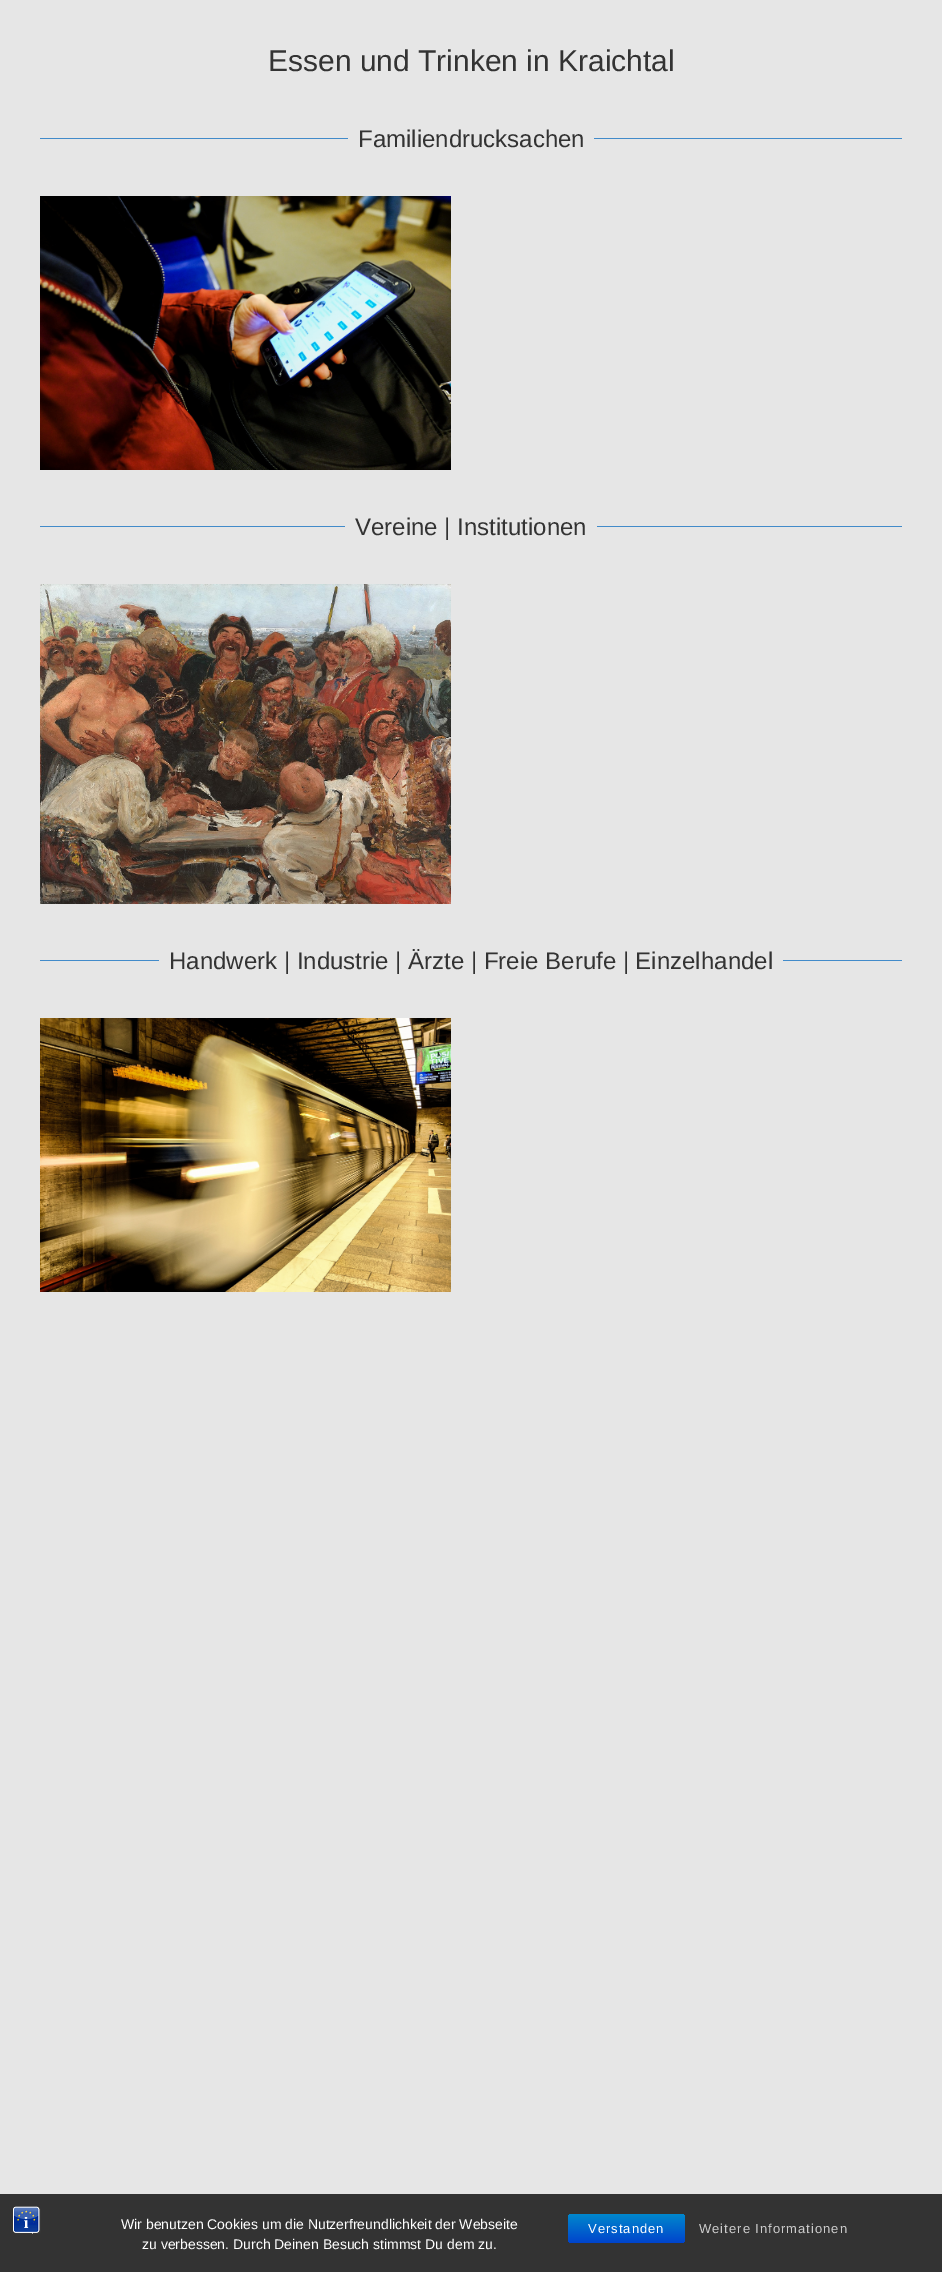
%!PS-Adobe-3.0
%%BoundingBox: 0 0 942 2272
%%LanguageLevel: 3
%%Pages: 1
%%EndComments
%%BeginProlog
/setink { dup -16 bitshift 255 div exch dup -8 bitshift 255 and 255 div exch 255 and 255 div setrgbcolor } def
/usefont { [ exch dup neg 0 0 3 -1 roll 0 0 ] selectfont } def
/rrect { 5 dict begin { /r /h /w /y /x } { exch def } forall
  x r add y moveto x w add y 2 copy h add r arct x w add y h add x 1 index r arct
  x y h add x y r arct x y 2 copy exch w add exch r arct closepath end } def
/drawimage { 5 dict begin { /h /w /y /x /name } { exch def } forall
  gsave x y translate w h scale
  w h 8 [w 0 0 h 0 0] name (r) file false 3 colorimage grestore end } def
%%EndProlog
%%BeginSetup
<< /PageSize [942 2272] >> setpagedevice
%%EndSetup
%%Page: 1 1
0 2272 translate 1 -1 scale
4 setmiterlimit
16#E6E6E6 setink
0 0 942 2272 rectfill
/LiberationSans-Regular 30 usefont
16#333333 setink
268 71 moveto (Essen und Trinken in Kraichtal) show
16#428BCA setink
40 138 308 1 rectfill
/LiberationSans-Regular 24 usefont
16#333333 setink
358 147 moveto (Familiendrucksachen) show
16#428BCA setink
594 138 308 1 rectfill
(img1.raw) 40 196 411 274 drawimage
40 526 305 1 rectfill
16#333333 setink
355 535 moveto (Vereine | Institutionen) show
16#428BCA setink
597 526 305 1 rectfill
(img2.raw) 40 584 411 320 drawimage
40 960 119 1 rectfill
16#333333 setink
169 969 moveto (Handwerk | Industrie | Ärzte | Freie Berufe | Einzelhandel) show
16#428BCA setink
783 960 119 1 rectfill
(img3.raw) 40 1018 411 274 drawimage
16#333333 setink
0 2194 942 78 rectfill
(img4.raw) 13 2206 28 28 drawimage
/LiberationSans-Regular 14 usefont
16#FFFFFF setink
121 2229 moveto (Wir benutzen Cookies um die Nutzerfreundlichkeit der Webseite) show
142 2249 moveto (zu verbessen. Durch Deinen Besuch stimmst Du dem zu.) show
gsave 568 2214 117 29 4 rrect clip newpath
<< /ShadingType 2 /ColorSpace /DeviceRGB /Coords [627 2214 627 2243] /Extend [true true] /Function << /FunctionType 2 /Domain [0 1] /C0 [0 0.533 0.8] /C1 [0 0.267 0.8] /N 1 >> >> shfill grestore
/LiberationSans-Regular 13 usefont
588 2233 moveto 1 0 (Verstanden) ashow
16#CCCCCC setink
699 2233 moveto 1 0 (Weitere Informationen) ashow
showpage
%%EOF
